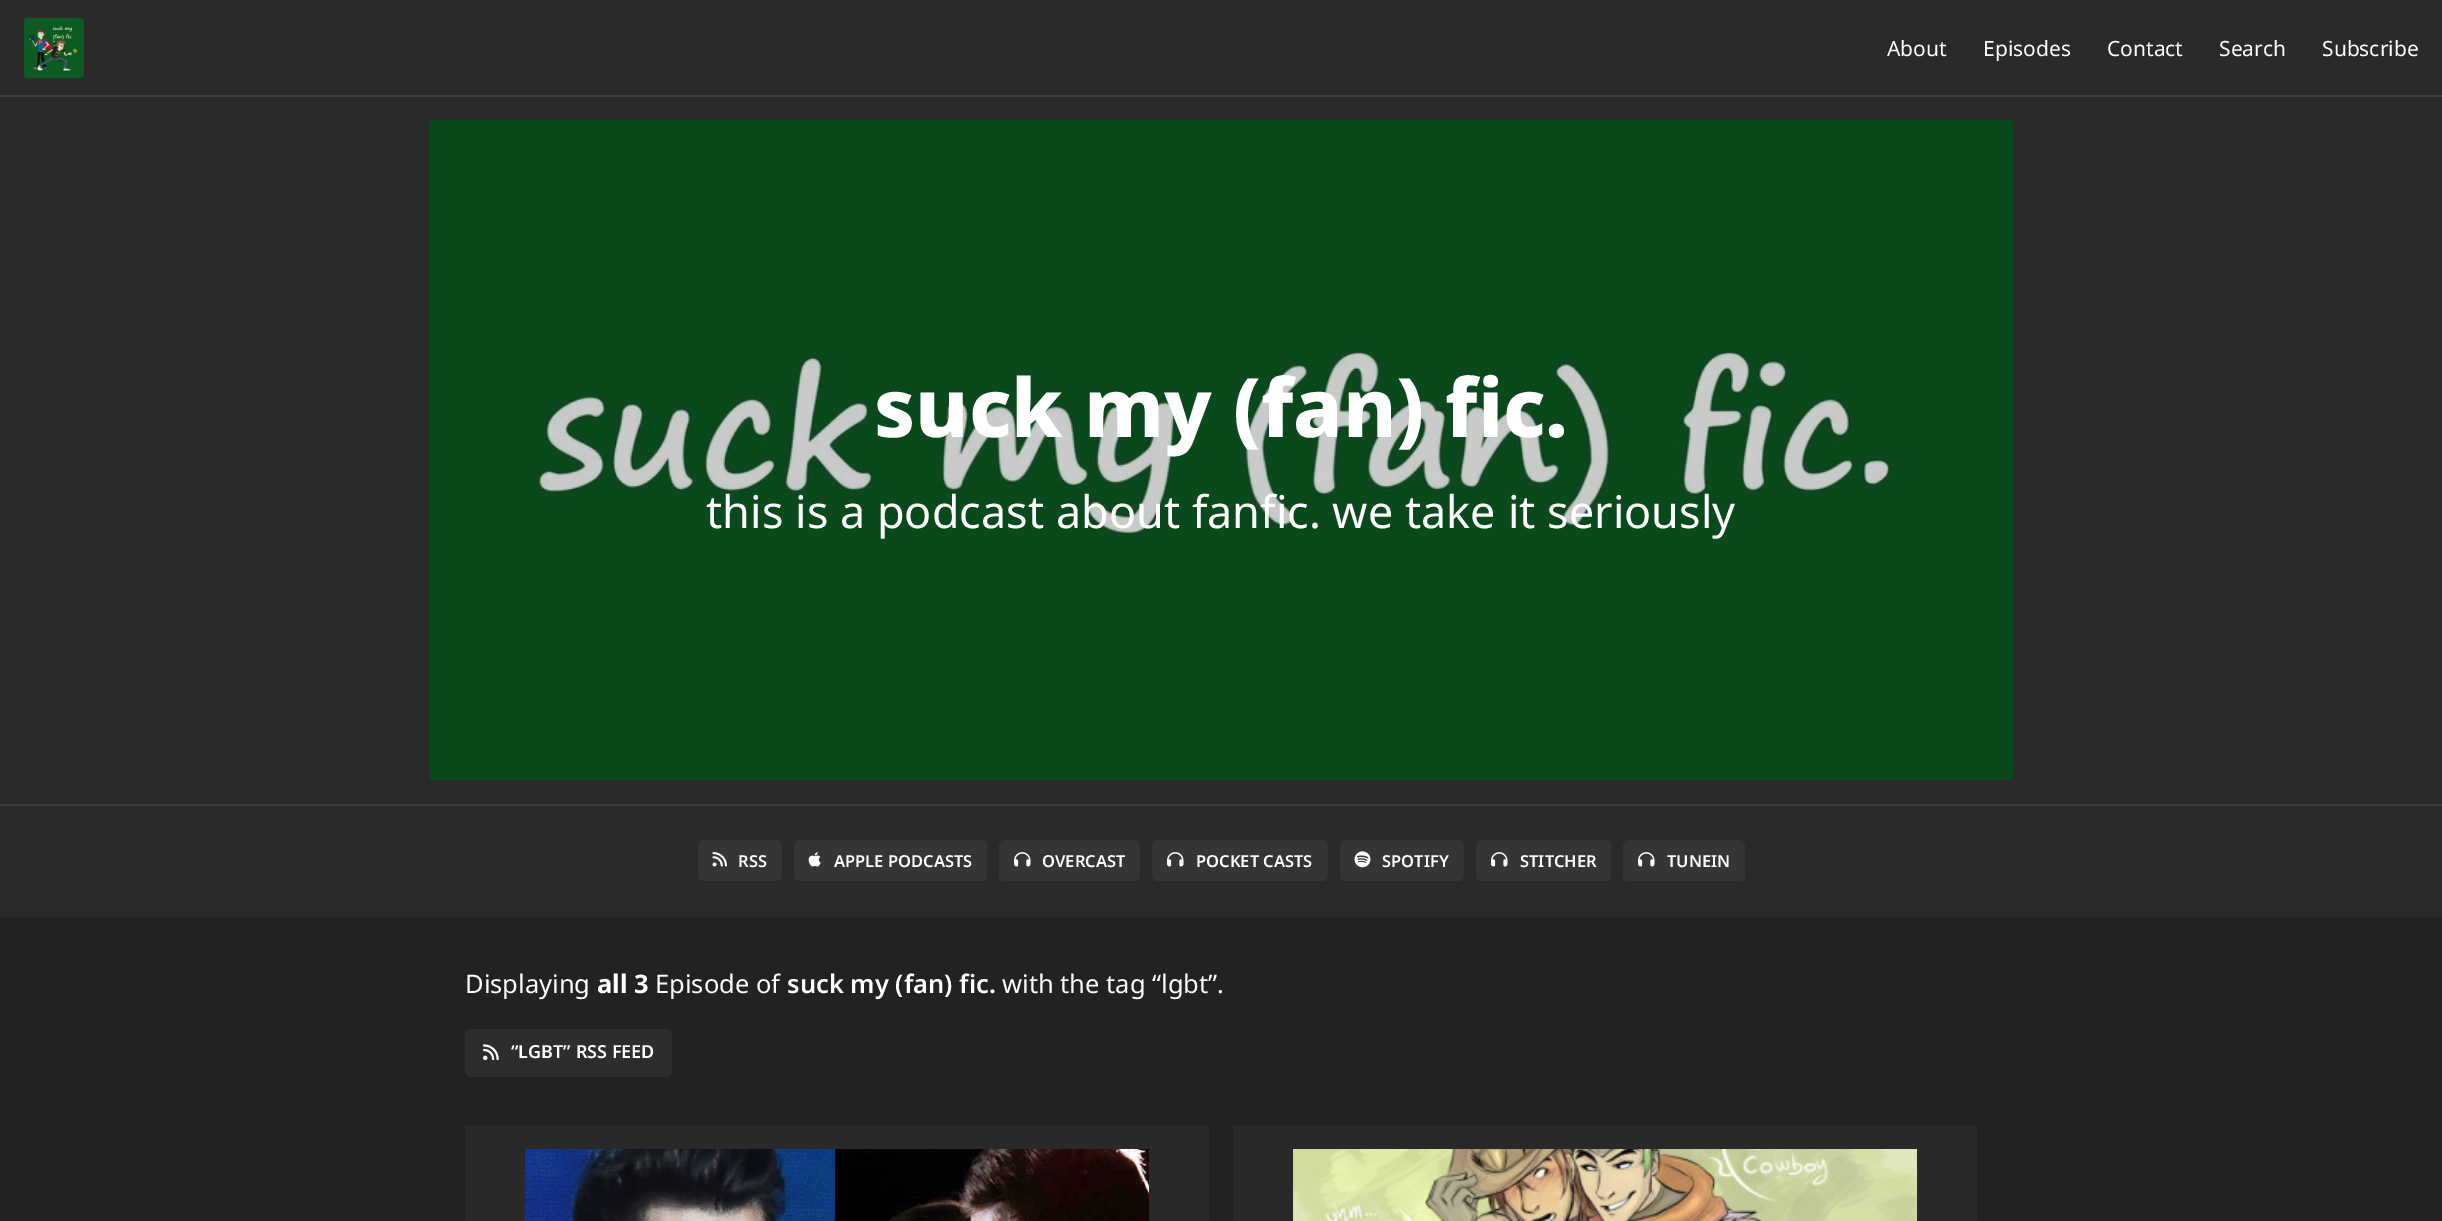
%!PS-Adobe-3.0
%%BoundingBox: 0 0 2442 1221
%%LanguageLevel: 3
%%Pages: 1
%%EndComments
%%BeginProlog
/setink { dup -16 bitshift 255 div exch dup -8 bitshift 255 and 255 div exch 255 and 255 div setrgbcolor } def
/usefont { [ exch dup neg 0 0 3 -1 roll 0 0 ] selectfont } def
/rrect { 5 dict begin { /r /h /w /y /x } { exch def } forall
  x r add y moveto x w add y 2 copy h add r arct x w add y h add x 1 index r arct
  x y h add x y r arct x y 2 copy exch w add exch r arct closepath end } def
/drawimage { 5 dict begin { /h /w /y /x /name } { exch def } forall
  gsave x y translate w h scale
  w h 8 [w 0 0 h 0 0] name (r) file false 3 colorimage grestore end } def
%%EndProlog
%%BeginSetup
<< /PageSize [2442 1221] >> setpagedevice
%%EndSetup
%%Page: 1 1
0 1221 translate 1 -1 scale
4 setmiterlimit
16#222222 setink
0 0 2442 1221 rectfill
16#2A2A2A setink
0 0 2442 95 rectfill
16#3B3B3B setink
0 95 2442 2 rectfill
(img1.raw) 24 18 60 60 drawimage
/NotoSans-Regular 21 usefont
16#FFFFFF setink
[
    [(About) 1887 56]
    [(Episodes) 1983 56]
    [(Contact) 2107 56]
    [(Search) 2219 56]
    [(Subscribe) 2322 56]
] { aload pop moveto show } forall
16#2A2A2A setink
0 97 2442 707 rectfill
16#222222 setink
429 120 1584 660 rectfill
(img2.raw) 429 120 1584 660 drawimage
/NotoSans-ExtraBold 81 usefont
16#FFFFFF setink
874 437 moveto (suck my \(fan\) fic.) show
/NotoSans-Regular 45 usefont
706 528 moveto (this is a podcast about fanfic. we take it seriously) show
16#2A2A2A setink
0 806 2442 111 rectfill
16#3B3B3B setink
0 804 2442 2 rectfill
16#353535 setink
698 840 84 41 6 rrect fill
(img3.raw) 712 852 15 15 drawimage
/NotoSans-SemiBold 16.5 usefont
16#FFFFFF setink
738 867 moveto (RSS) show
16#353535 setink
794 840 193 41 6 rrect fill
(img4.raw) 808 852 13 15 drawimage
16#FFFFFF setink
834 867 moveto (APPLE PODCASTS) show
16#353535 setink
999 840 141 41 6 rrect fill
(img5.raw) 1014 852 17 15 drawimage
16#FFFFFF setink
1042 867 moveto (OVERCAST) show
16#353535 setink
1152 840 176 41 6 rrect fill
(img5.raw) 1167 852 17 15 drawimage
16#FFFFFF setink
1196 867 moveto (POCKET CASTS) show
16#353535 setink
1340 840 124 41 6 rrect fill
(img6.raw) 1354 851 17 17 drawimage
16#FFFFFF setink
1382 867 moveto (SPOTIFY) show
16#353535 setink
1476 840 135 41 6 rrect fill
(img5.raw) 1491 852 17 15 drawimage
16#FFFFFF setink
1520 867 moveto (STITCHER) show
16#353535 setink
1623 840 122 41 6 rrect fill
(img5.raw) 1638 852 17 15 drawimage
16#FFFFFF setink
1667 867 moveto (TUNEIN) show
/NotoSans-Regular 25.5 usefont
465 993 moveto (Displaying) show
/NotoSans-Bold 25.5 usefont
597 993 moveto (all 3) show
/NotoSans-Regular 25.5 usefont
655 993 moveto (Episode of) show
/NotoSans-SemiBold 25.5 usefont
787 993 moveto (suck my \(fan\) fic.) show
/NotoSans-Regular 25.5 usefont
1002 993 moveto (with the tag “lgbt”.) show
16#2D2D2D setink
465 1029 207 48 6 rrect fill
(img7.raw) 483 1044 16 17 drawimage
/NotoSans-SemiBold 18 usefont
16#FFFFFF setink
511 1058 moveto (“LGBT” RSS FEED) show
16#292929 setink
465 1125 744 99 3 rrect fill
(img8.raw) 525 1149 624 72 drawimage
1233 1125 744 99 3 rrect fill
(img9.raw) 1293 1149 624 72 drawimage
showpage
%%EOF
